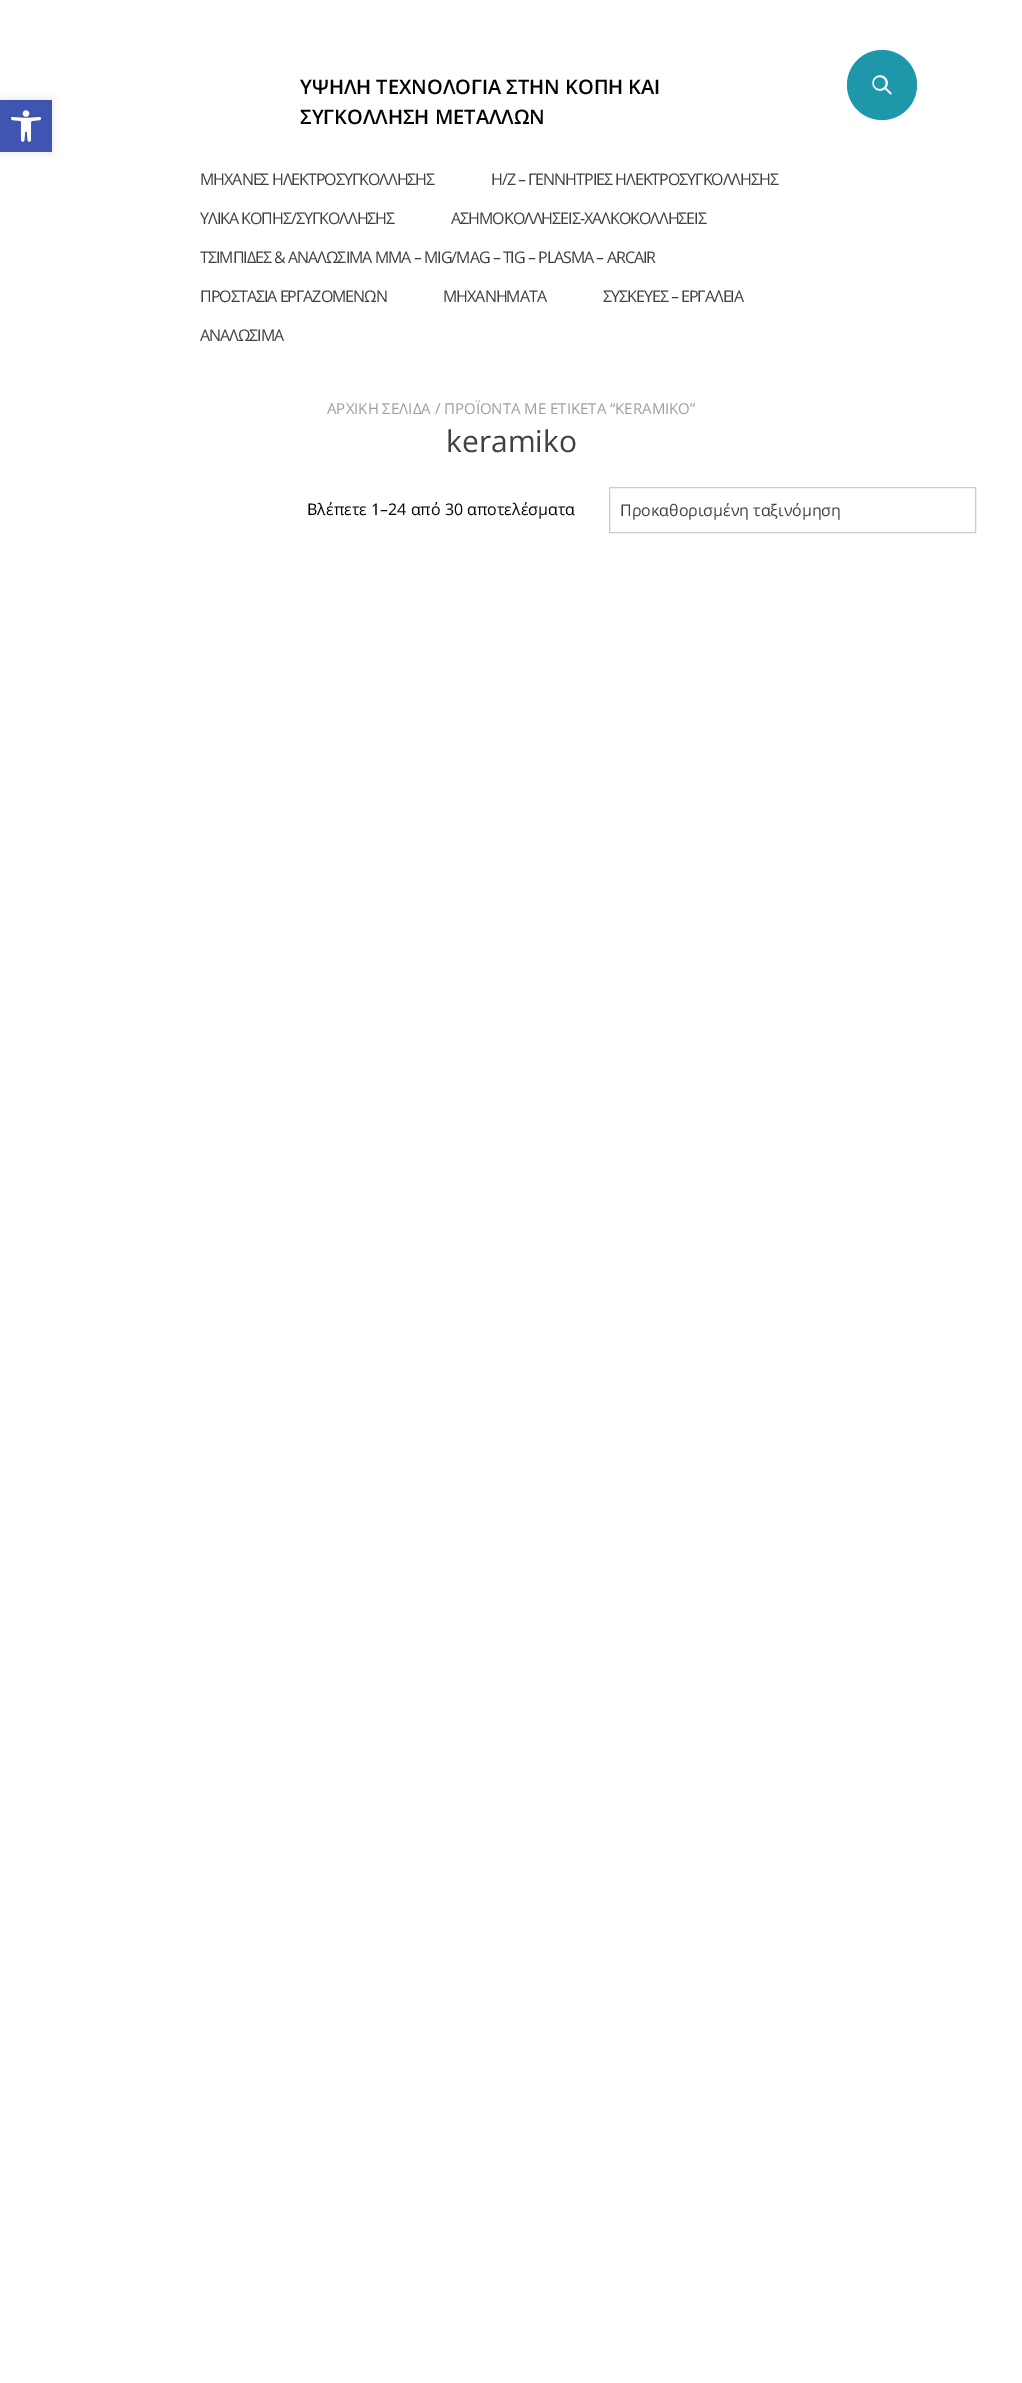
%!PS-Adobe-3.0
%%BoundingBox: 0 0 1022 2383
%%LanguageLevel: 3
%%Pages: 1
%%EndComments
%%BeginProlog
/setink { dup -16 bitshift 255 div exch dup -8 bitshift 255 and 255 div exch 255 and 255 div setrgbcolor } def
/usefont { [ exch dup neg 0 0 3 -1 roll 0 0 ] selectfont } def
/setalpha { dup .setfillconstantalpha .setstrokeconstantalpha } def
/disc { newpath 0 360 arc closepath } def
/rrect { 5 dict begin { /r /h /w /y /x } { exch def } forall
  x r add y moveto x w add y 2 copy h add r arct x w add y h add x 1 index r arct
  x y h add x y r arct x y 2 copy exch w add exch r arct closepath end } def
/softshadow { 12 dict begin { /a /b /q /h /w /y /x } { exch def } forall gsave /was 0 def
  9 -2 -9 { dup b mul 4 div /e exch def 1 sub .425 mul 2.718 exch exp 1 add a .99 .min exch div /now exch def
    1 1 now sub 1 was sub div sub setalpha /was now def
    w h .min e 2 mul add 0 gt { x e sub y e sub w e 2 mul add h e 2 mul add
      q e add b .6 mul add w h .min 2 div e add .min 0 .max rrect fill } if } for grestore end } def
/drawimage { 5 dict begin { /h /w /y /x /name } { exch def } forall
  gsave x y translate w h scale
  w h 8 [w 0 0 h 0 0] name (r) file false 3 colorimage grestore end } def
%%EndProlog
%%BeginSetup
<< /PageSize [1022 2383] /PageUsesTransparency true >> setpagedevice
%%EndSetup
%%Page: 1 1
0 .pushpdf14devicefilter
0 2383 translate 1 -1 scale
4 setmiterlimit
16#FFFFFF setink
0 0 1022 2383 rectfill
16#000000 setink
0 100 52 52 0 5 0.1 softshadow
16#4054B2 setink
0 100 52 52 rectfill
(img1.raw) 11 110 30 32 drawimage
/OpenSans-SemiBold 20 usefont
16#020202 setink
300 94 moveto (ΥΨΗΛΗ ΤΕΧΝΟΛΟΓΙΑ ΣΤΗΝ ΚΟΠΗ ΚΑΙ) show
300 124 moveto (ΣΥΓΚΟΛΛΗΣΗ ΜΕΤΑΛΛΩΝ) show
/OpenSans-Regular 16 usefont
16#404040 setink
200 185 moveto -1 0 (ΜΗΧΑΝΕΣ ΗΛΕΚΤΡΟΣΥΓΚΟΛΛΗΣΗΣ) ashow
491 185 moveto -1 0 (Η/Ζ – ΓΕΝΝΗΤΡΙΕΣ ΗΛΕΚΤΡΟΣΥΓΚΟΛΛΗΣΗΣ) ashow
200 224 moveto -1 0 (ΥΛΙΚΑ ΚΟΠΗΣ/ΣΥΓΚΟΛΛΗΣΗΣ) ashow
451 224 moveto -1 0 (ΑΣΗΜΟΚΟΛΛΗΣΕΙΣ-ΧΑΛΚΟΚΟΛΛΗΣΕΙΣ) ashow
200 263 moveto -1 0 (ΤΣΙΜΠΙΔΕΣ & ΑΝΑΛΩΣΙΜΑ MMA – MIG/MAG – TIG – PLASMA – ARCAIR) ashow
200 302 moveto -1 0 (ΠΡΟΣΤΑΣΙΑ ΕΡΓΑΖΟΜΕΝΩΝ) ashow
443 302 moveto -1 0 (ΜΗΧΑΝΗΜΑΤΑ) ashow
603 302 moveto -1 0 (ΣΥΣΚΕΥΕΣ – ΕΡΓΑΛΕΙΑ) ashow
200 341 moveto -1 0 (ΑΝΑΛΩΣΙΜΑ) ashow
/OpenSans-Regular 15 usefont
16#9D9D9D setink
327 414 moveto (ΑΡΧΙΚΗ ΣΕΛΙΔΑ / ΠΡΟΪΟΝΤΑ ΜΕ ΕΤΙΚΕΤΑ “KERAMIKO”) show
/OpenSans-Regular 30 usefont
16#404040 setink
446 452 moveto (keramiko) show
/OpenSans-Regular 16 usefont
16#020202 setink
307 515 moveto (Βλέπετε 1–24 από 30 αποτελέσματα) show
16#CCCCCC setink
609.5 487.5 366 45 rectstroke
16#404040 setink
620 516 moveto (Προκαθορισμένη ταξινόμηση) show
16#1F97AB setink
882 85 35 disc fill
(img2.raw) 872 75 20 20 drawimage
.poppdf14devicefilter showpage
%%EOF
